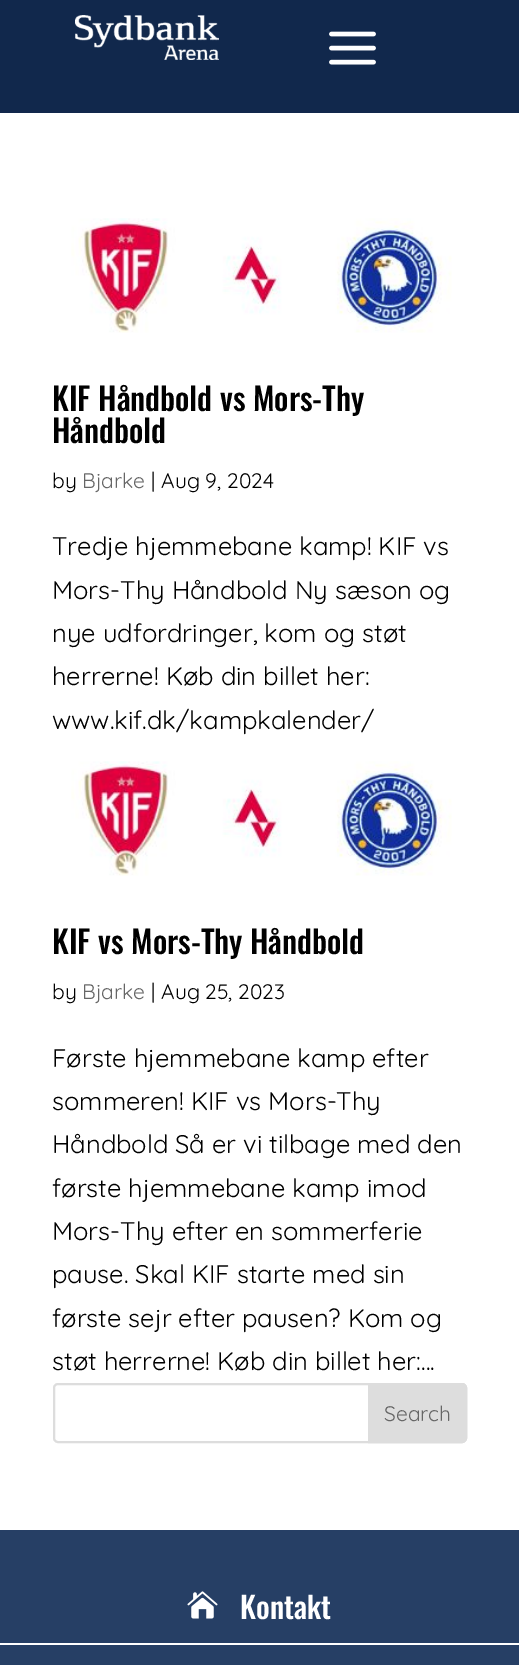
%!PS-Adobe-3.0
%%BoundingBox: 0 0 519 1665
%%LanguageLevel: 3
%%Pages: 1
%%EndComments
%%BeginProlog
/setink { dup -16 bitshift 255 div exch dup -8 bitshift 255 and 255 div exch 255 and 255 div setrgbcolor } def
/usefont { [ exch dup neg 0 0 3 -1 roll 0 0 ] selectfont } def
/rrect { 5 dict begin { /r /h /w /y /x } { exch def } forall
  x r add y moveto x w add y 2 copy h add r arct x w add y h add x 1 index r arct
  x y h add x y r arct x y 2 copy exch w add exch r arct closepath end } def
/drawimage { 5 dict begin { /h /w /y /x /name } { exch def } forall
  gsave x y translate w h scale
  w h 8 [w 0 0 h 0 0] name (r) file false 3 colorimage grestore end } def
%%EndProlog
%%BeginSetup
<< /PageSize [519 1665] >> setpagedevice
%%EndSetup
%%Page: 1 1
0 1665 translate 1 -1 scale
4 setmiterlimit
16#FFFFFF setink
0 0 519 1665 rectfill
16#11284C setink
0 0 519 113 rectfill
(img1.raw) 75 15 144 45 drawimage
(img2.raw) 329 31 47 34 drawimage
(img3.raw) 71 218 381 115 drawimage
/Oswald-Medium 31.5 usefont
16#000000 setink
52 411 moveto (KIF Håndbold vs Mors-Thy) show
52 443 moveto (Håndbold) show
/Quicksand-Light 21 usefont
52 488 moveto (by) show
16#666666 setink
82 488 moveto (Bjarke) show
16#000000 setink
151 488 moveto (| Aug 9, 2024) show
/Quicksand-Light 25.5 usefont
[
    [(Tredje hjemmebane kamp! KIF vs) 52 555]
    [(Mors-Thy Håndbold Ny sæson og) 52 599]
    [(nye udfordringer, kom og støt) 52 642]
    [(herrerne! Køb din billet her:) 52 685]
    [(www.kif.dk/kampkalender/) 52 729]
] { aload pop moveto show } forall
(img3.raw) 71 761 381 115 drawimage
/Oswald-Medium 31.5 usefont
52 954 moveto (KIF vs Mors-Thy Håndbold) show
/Quicksand-Light 21 usefont
52 999 moveto (by) show
16#666666 setink
82 999 moveto (Bjarke) show
16#000000 setink
151 999 moveto (| Aug 25, 2023) show
/Quicksand-Light 25.5 usefont
[
    [(Første hjemmebane kamp efter) 52 1067]
    [(sommeren! KIF vs Mors-Thy) 52 1110]
    [(Håndbold Så er vi tilbage med den) 52 1153]
    [(første hjemmebane kamp imod) 52 1197]
    [(Mors-Thy efter en sommerferie) 52 1240]
    [(pause. Skal KIF starte med sin) 52 1283]
    [(første sejr efter pausen? Kom og) 52 1327]
    [(støt herrerne! Køb din billet her:...) 52 1370]
] { aload pop moveto show } forall
16#DDDDDD setink
2 setlinewidth
54 1384 412 58 4 rrect stroke
369 1384 moveto 462 1384 lineto 464 1384 466 1386 466 1388 curveto 466 1438 lineto 466 1440 464 1442 462 1442 curveto 369 1442 lineto closepath gsave fill grestore
stroke
/Quicksand-Light 21 usefont
16#666666 setink
384 1421 moveto (Search) show
16#263F65 setink
0 1530 519 135 rectfill
(img4.raw) 187 1591 31 28 drawimage
/Oswald-Medium 30 usefont
16#FFFFFF setink
240 1619 moveto (Kontakt) show
0 1643 519 2 rectfill
showpage
%%EOF
